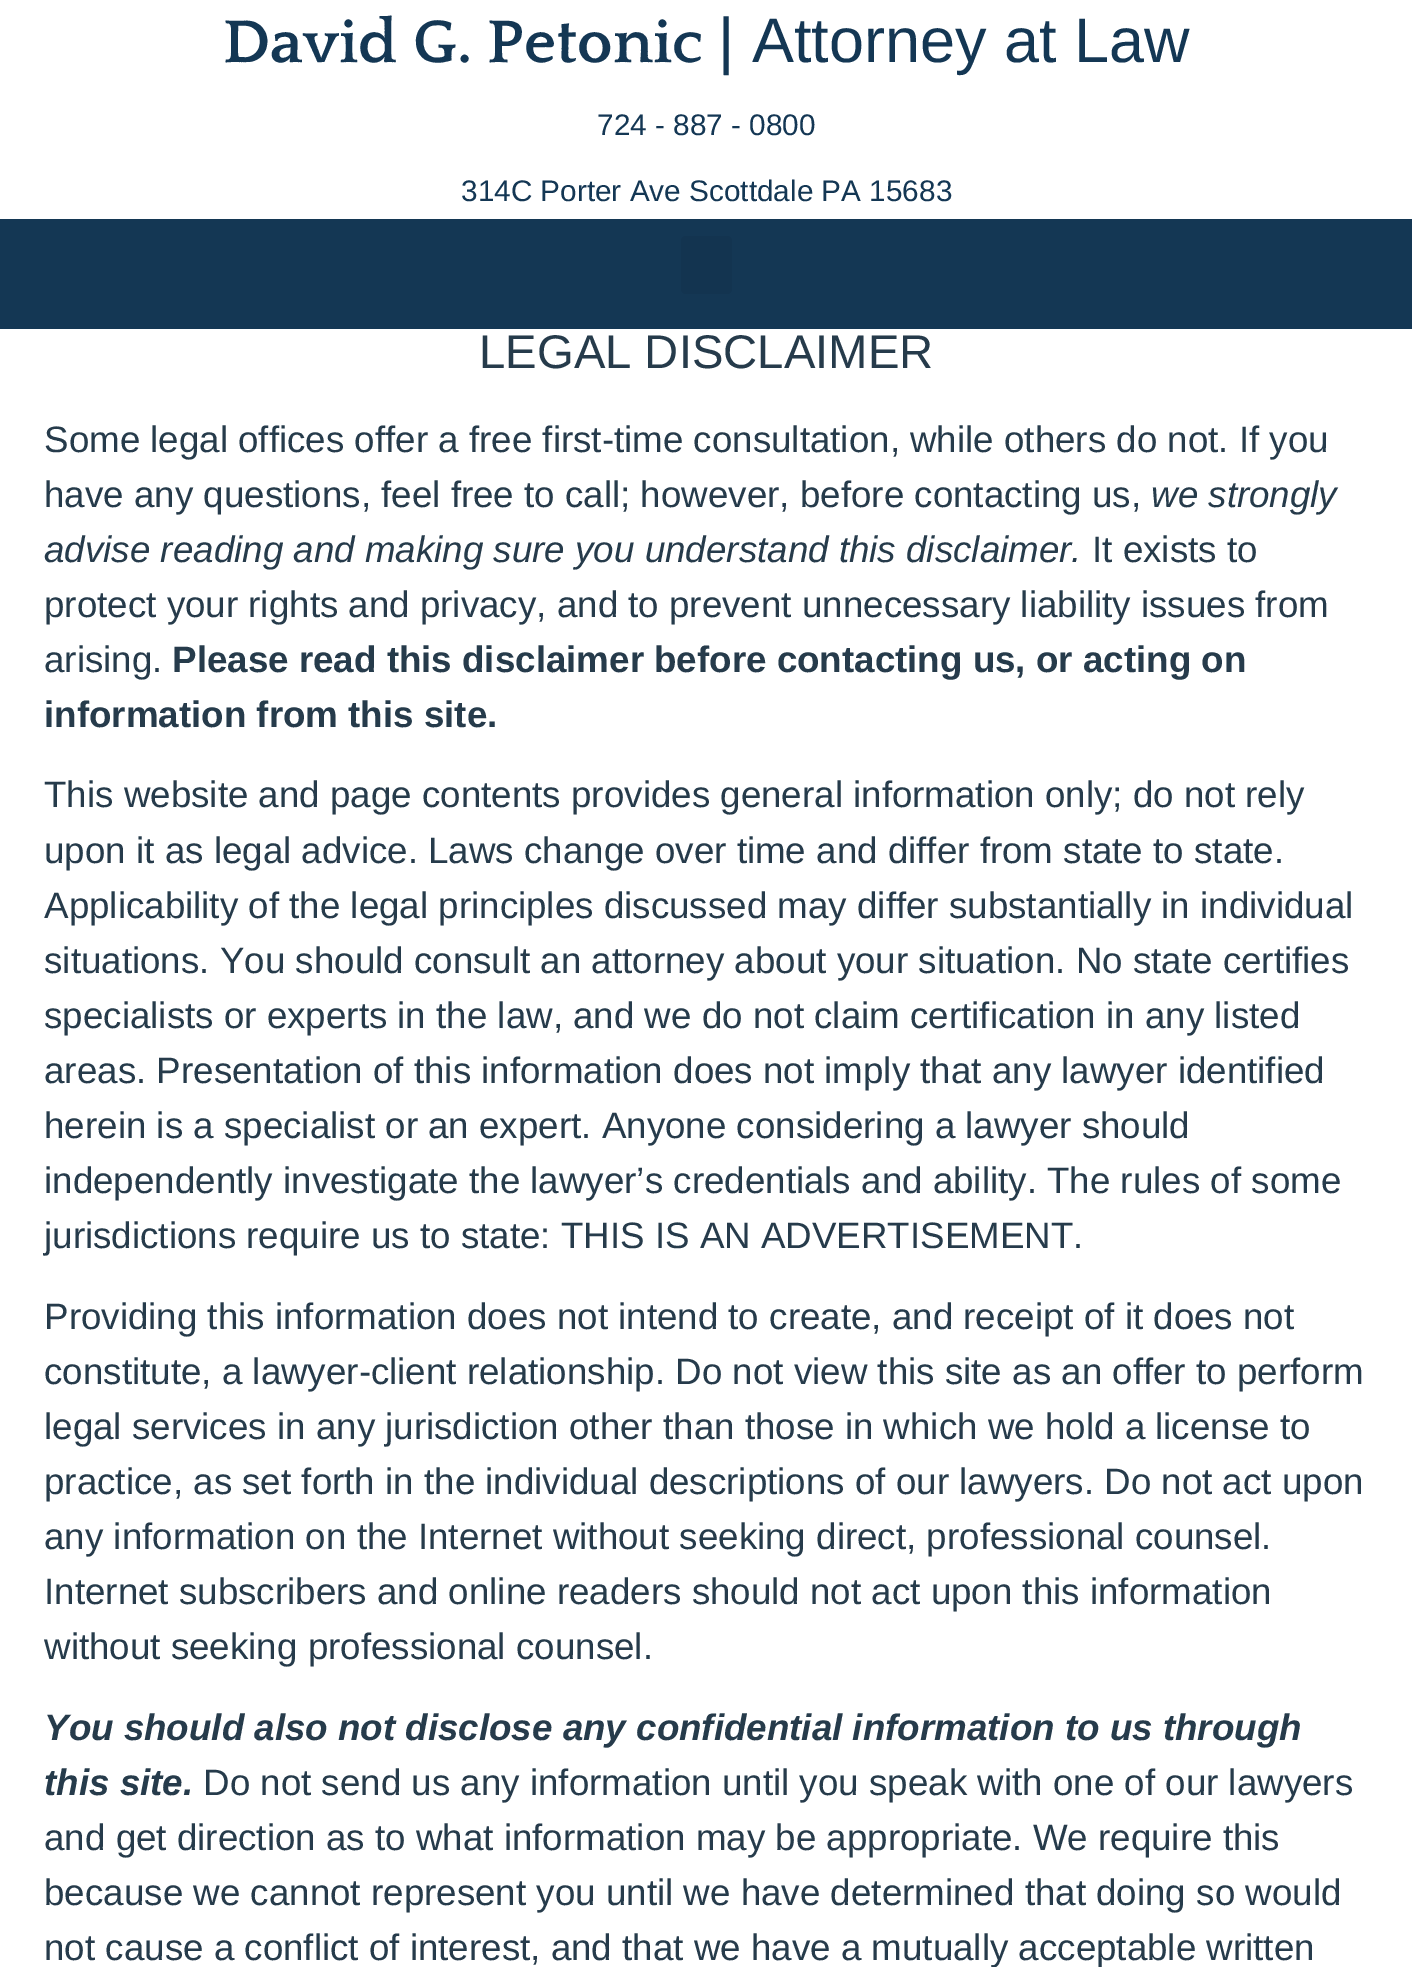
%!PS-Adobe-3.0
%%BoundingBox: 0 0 1412 1967
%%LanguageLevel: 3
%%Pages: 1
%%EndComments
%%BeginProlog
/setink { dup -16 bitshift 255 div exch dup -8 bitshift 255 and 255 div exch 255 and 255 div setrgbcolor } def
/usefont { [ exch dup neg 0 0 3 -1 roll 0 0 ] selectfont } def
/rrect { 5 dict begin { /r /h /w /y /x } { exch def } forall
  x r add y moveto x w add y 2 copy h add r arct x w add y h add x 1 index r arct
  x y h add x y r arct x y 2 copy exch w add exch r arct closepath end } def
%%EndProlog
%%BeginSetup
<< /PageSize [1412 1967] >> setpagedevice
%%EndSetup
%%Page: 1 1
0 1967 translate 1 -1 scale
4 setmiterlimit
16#FFFFFF setink
0 0 1412 1967 rectfill
/Quattrocento-Bold 63 usefont
16#143754 setink
223 62 moveto (David G. Petonic) show
/LiberationSans-Regular 63 usefont
718 62 moveto (| Attorney at Law) show
/LiberationSans-Regular 29.75 usefont
597 135 moveto (724 - 887 - 0800) show
461 201 moveto (314C Porter Ave Scottdale PA 15683) show
0 219 1412 110 rectfill
16#133450 setink
681 236 51 58 5 rrect fill
/LiberationSans-Regular 47.25 usefont
16#263B4B setink
479 368 moveto (LEGAL DISCLAIMER) show
/LiberationSans-Regular 36.75 usefont
44 452 moveto (Some legal offices offer a free first-time consultation, while others do not. If you) show
44 507 moveto (have any questions, feel free to call; however, before contacting us,) show
/LiberationSans-Italic 36.75 usefont
1151 507 moveto (we strongly) show
44 562 moveto (advise reading and making sure you understand this disclaimer.) show
/LiberationSans-Regular 36.75 usefont
[
    [(It exists to) 1092 562]
    [(protect your rights and privacy, and to prevent unnecessary liability issues from) 44 617]
    [(arising.) 44 672]
] { aload pop moveto show } forall
/LiberationSans-Bold 36.75 usefont
172 672 moveto (Please read this disclaimer before contacting us, or acting on) show
44 727 moveto (information from this site.) show
/LiberationSans-Regular 36.75 usefont
[
    [(This website and page contents provides general information only; do not rely) 44 807]
    [(upon it as legal advice. Laws change over time and differ from state to state.) 44 863]
    [(Applicability of the legal principles discussed may differ substantially in individual) 44 918]
    [(situations. You should consult an attorney about your situation. No state certifies) 44 973]
    [(specialists or experts in the law, and we do not claim certification in any listed) 44 1028]
    [(areas. Presentation of this information does not imply that any lawyer identified) 44 1083]
    [(herein is a specialist or an expert. Anyone considering a lawyer should) 44 1138]
    [(independently investigate the lawyer’s credentials and ability. The rules of some) 44 1193]
    [(jurisdictions require us to state: THIS IS AN ADVERTISEMENT.) 44 1248]
    [(Providing this information does not intend to create, and receipt of it does not) 44 1329]
    [(constitute, a lawyer-client relationship. Do not view this site as an offer to perform) 44 1384]
    [(legal services in any jurisdiction other than those in which we hold a license to) 44 1439]
    [(practice, as set forth in the individual descriptions of our lawyers. Do not act upon) 44 1494]
    [(any information on the Internet without seeking direct, professional counsel.) 44 1549]
    [(Internet subscribers and online readers should not act upon this information) 44 1604]
    [(without seeking professional counsel.) 44 1659]
] { aload pop moveto show } forall
/LiberationSans-BoldItalic 36.75 usefont
44 1740 moveto (You should also not disclose any confidential information to us through) show
44 1795 moveto (this site.) show
/LiberationSans-Regular 36.75 usefont
[
    [(Do not send us any information until you speak with one of our lawyers) 203 1795]
    [(and get direction as to what information may be appropriate. We require this) 44 1850]
    [(because we cannot represent you until we have determined that doing so would) 44 1905]
    [(not cause a conflict of interest, and that we have a mutually acceptable written) 44 1960]
] { aload pop moveto show } forall
showpage
%%EOF
